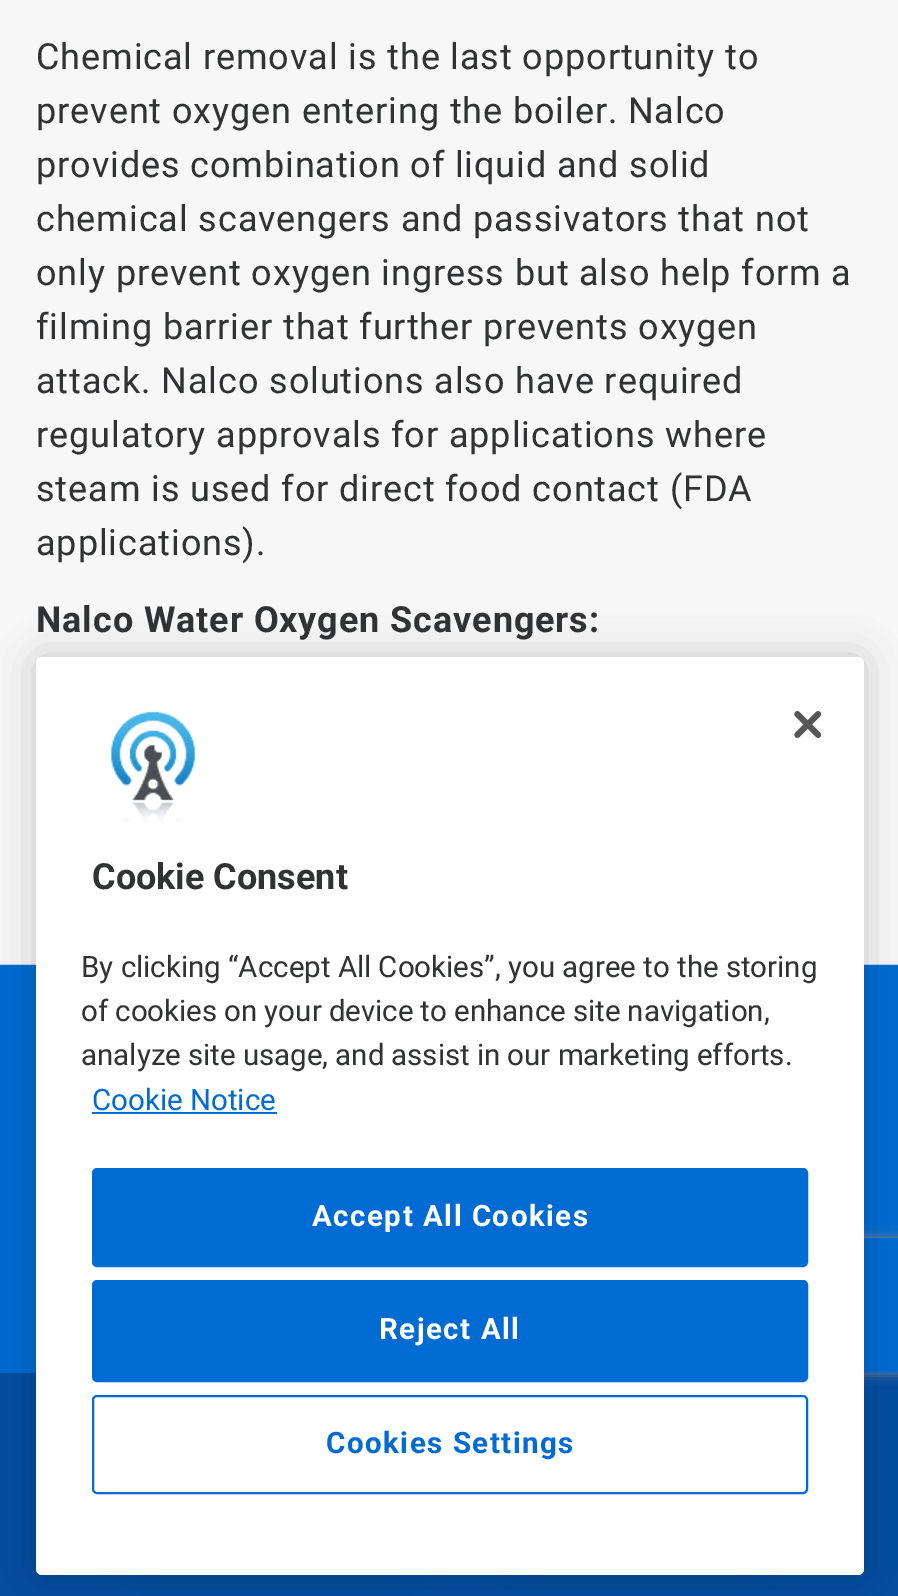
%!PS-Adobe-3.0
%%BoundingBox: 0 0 898 1596
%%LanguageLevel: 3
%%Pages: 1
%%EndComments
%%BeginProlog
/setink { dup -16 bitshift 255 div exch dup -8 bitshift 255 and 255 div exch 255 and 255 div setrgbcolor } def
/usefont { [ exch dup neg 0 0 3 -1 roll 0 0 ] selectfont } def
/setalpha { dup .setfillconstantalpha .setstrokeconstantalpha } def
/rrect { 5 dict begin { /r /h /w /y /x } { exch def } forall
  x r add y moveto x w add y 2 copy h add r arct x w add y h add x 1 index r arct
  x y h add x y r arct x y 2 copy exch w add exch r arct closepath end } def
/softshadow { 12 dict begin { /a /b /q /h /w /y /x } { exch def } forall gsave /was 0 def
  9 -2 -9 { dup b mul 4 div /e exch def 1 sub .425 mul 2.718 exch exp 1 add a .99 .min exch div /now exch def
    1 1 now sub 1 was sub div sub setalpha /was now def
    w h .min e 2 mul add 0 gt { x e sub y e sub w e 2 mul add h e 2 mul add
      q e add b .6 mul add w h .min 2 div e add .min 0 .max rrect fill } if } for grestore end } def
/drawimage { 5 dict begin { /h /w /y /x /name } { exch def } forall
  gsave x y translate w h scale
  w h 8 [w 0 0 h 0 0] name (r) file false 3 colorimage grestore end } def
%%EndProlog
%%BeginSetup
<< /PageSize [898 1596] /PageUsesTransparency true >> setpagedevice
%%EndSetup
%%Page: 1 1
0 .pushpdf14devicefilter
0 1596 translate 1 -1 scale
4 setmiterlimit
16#F7F7F7 setink
0 0 898 1596 rectfill
/Roboto-Regular 36 usefont
16#313233 setink
36 69 moveto 0.9 0 (Chemical removal is the last opportunity to) ashow
36 123 moveto 0.9 0 (prevent oxygen entering the boiler. Nalco) ashow
36 177 moveto 0.9 0 (provides combination of liquid and solid) ashow
36 231 moveto 0.9 0 (chemical scavengers and passivators that not) ashow
36 285 moveto 0.9 0 (only prevent oxygen ingress but also help form a) ashow
36 339 moveto 0.9 0 (filming barrier that further prevents oxygen) ashow
36 393 moveto 0.9 0 (attack. Nalco solutions also have required) ashow
36 447 moveto 0.9 0 (regulatory approvals for applications where) ashow
36 501 moveto 0.9 0 (steam is used for direct food contact \(FDA) ashow
36 555 moveto 0.9 0 (applications\).) ashow
/Roboto-Bold 36 usefont
36 632 moveto 0.9 0 (Nalco Water Oxygen Scavengers:) ashow
(img3.raw) 0 964 898 409 drawimage
16#044EA0 setink
0 1373 898 223 rectfill
16#000000 setink
36 657 828 918 6 20 0.2 softshadow
122 1458 310 104 52 22.5 0.16 softshadow
500 1458 279 104 52 22.5 0.16 softshadow
gsave
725 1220 moveto 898 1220 lineto 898 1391 lineto 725 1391 lineto closepath 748 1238 moveto 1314 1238 lineto 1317 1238 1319 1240 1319 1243 curveto 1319 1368 lineto 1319 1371 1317 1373 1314 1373 curveto 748 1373 lineto 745 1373 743 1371 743 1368 curveto 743 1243 lineto 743 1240 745 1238 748 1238 curveto closepath eoclip newpath
16#808080 setink
743 1238 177 135 5 5.5 1 softshadow
grestore
16#FFFFFF setink
36 657 828 918 6 rrect fill
(img1.raw) 794 711 27 27 drawimage
(img2.raw) 110 711 85 111 drawimage
16#313233 setink
92 889 moveto (Cookie Consent) show
/Roboto-Regular 29.5 usefont
81 977 moveto -0.1 0 32 (By clicking “Accept All Cookies”, you agree to the storing) widthshow
81 1021 moveto -0.25 0 32 (of cookies on your device to enhance site navigation,) widthshow
81 1065 moveto -0.25 0 32 (analyze site usage, and assist in our marketing efforts.) widthshow
16#006BD3 setink
92 1110 moveto (Cookie Notice) show
92 1112 185 2 rectfill
93 1169 714 97 4 rrect gsave fill grestore
2 setlinewidth
stroke
/Roboto-Bold 29.5 usefont
16#FFFFFF setink
312 1226 moveto 1.5 0 (Accept All Cookies) ashow
16#006BD3 setink
93 1281 714 100 4 rrect gsave fill grestore
stroke
16#FFFFFF setink
379 1339 moveto 1.5 0 (Reject All) ashow
16#006BD3 setink
93 1396 714 97 4 rrect stroke
326 1453 moveto 1.5 0 (Cookies Settings) ashow
.poppdf14devicefilter showpage
%%EOF
